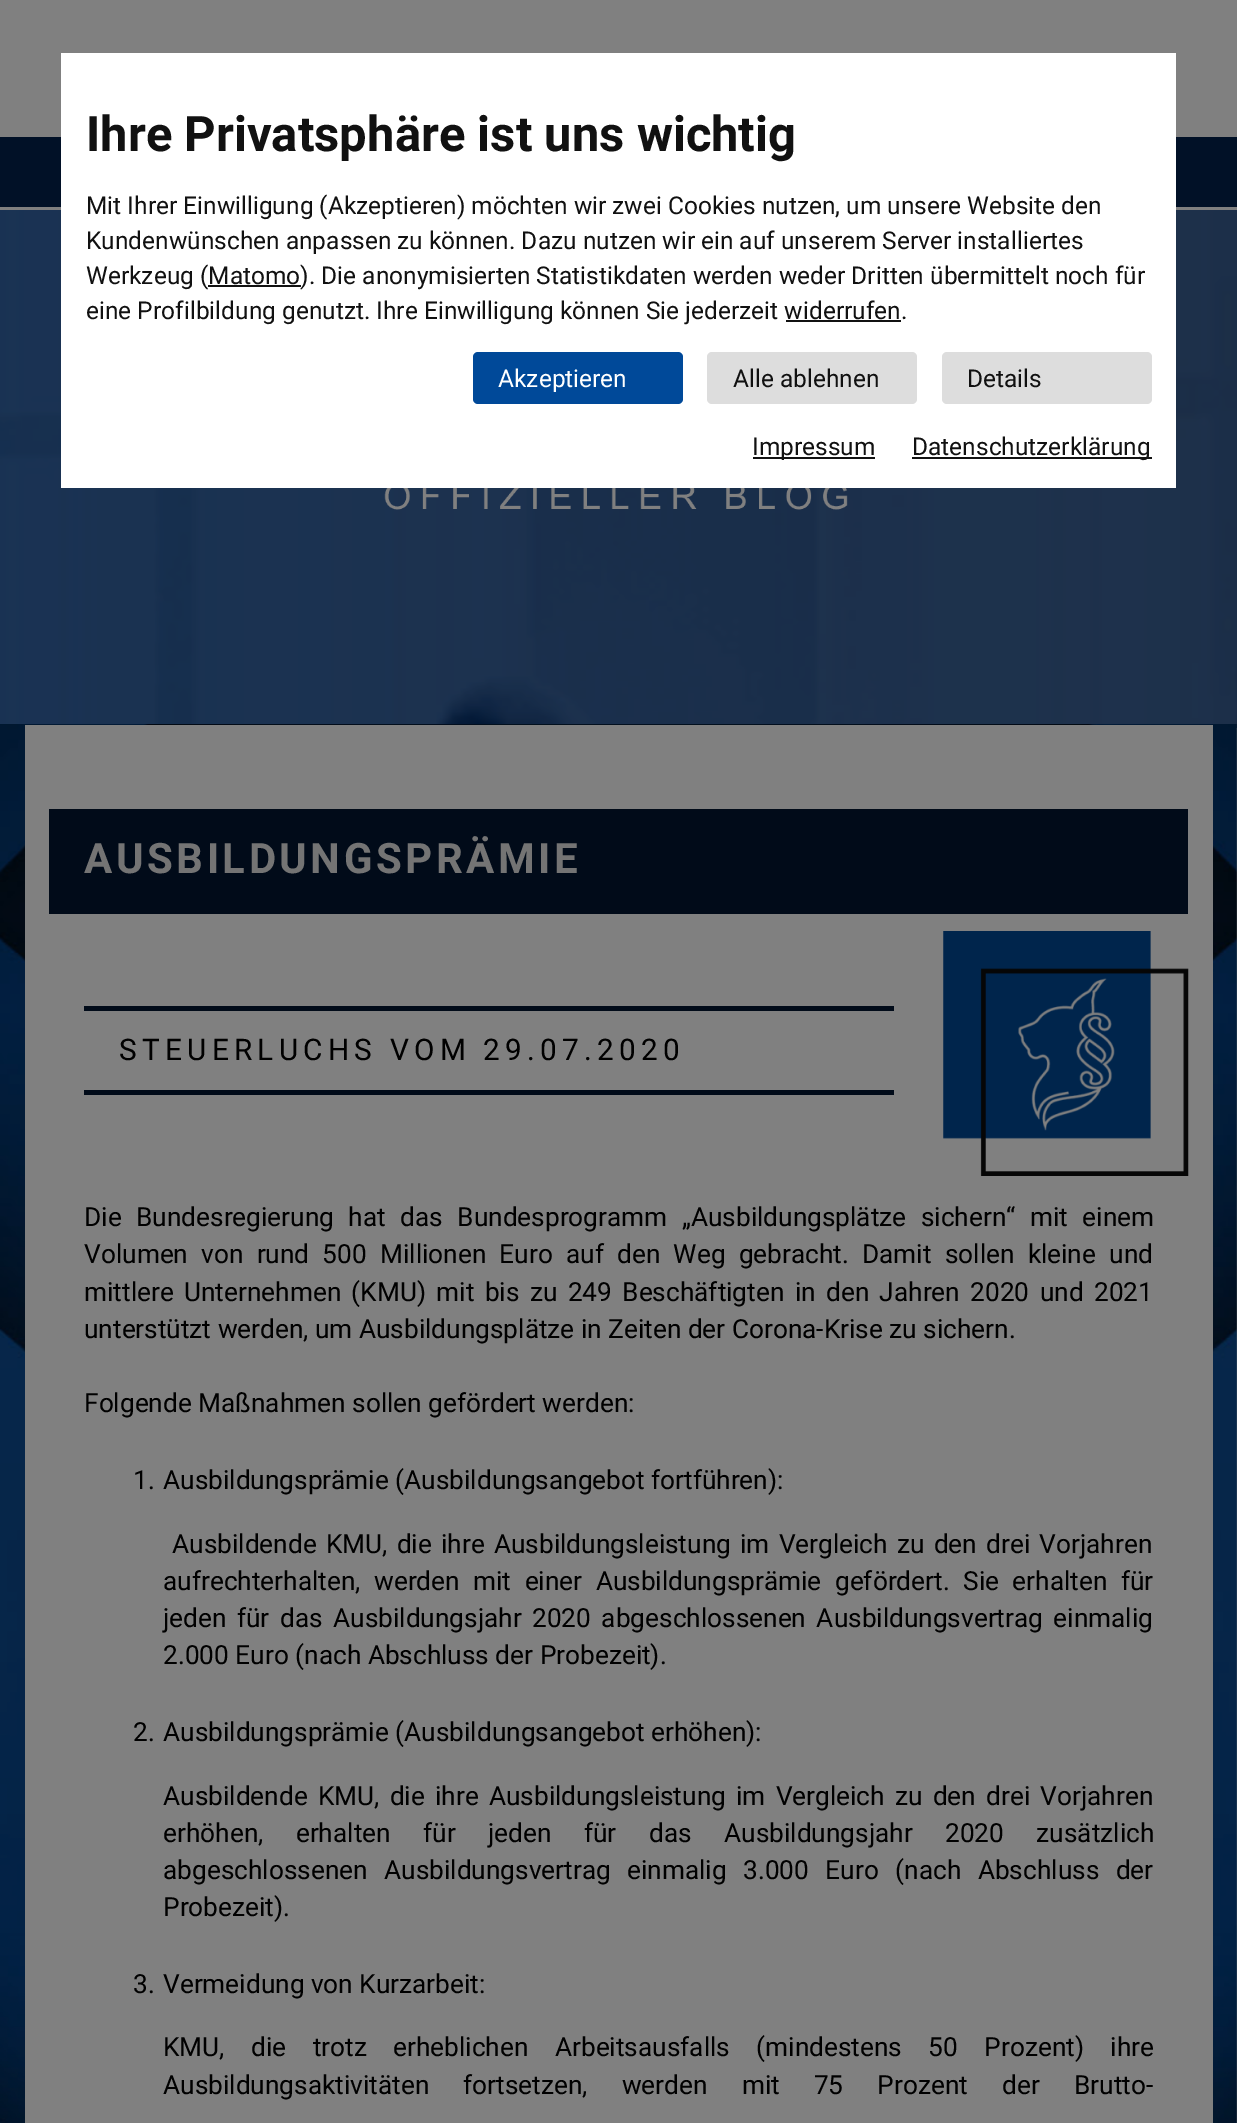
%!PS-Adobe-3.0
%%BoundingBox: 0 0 1237 2123
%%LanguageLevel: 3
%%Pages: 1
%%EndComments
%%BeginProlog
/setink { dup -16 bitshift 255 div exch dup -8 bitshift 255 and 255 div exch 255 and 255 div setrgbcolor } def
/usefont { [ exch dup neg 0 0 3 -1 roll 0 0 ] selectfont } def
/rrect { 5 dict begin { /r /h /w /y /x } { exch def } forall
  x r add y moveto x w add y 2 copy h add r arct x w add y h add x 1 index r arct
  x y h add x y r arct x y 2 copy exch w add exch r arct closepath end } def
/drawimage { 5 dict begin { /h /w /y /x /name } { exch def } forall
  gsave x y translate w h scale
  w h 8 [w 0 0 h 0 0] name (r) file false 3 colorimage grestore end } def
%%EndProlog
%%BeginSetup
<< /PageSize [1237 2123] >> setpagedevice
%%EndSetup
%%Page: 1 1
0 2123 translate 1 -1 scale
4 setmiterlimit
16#FFFFFF setink
0 0 1237 2123 rectfill
16#808080 setink
0 0 1237 210 rectfill
16#011127 setink
0 137 1237 70 rectfill
(img1.raw) 0 210 1237 518 drawimage
16#FFFFFF setink
61 53 1115 435 rectfill
/Roboto-Bold 49 usefont
16#111111 setink
86 151 moveto (Ihre Privatsphäre ist uns wichtig) show
/Roboto-Regular 24.5 usefont
[
    [(Mit Ihrer Einwilligung \(Akzeptieren\) möchten wir zwei Cookies nutzen, um unsere Website den) 86 214]
    [(Kundenwünschen anpassen zu können. Dazu nutzen wir ein auf unserem Server installiertes) 86 249]
    [(Werkzeug \(Matomo\). Die anonymisierten Statistikdaten werden weder Dritten übermittelt noch für) 86 284]
] { aload pop moveto show } forall
208 285 93 2 rectfill
86 319 moveto (eine Profilbildung genutzt. Ihre Einwilligung können Sie jederzeit widerrufen.) show
786 320 115 2 rectfill
16#004999 setink
473 352 210 52 5 rrect fill
16#FFFFFF setink
498 387 moveto (Akzeptieren) show
16#DDDDDD setink
707 352 210 52 5 rrect fill
16#111111 setink
733 387 moveto (Alle ablehnen) show
16#DDDDDD setink
942 352 210 52 5 rrect fill
16#111111 setink
967 387 moveto (Details) show
753 457 122 2 rectfill
752 455 moveto (Impressum) show
912 457 240 2 rectfill
912 455 moveto (Datenschutzerklärung) show
(img2.raw) 0 724 1237 1399 drawimage
16#808080 setink
25 725 1188 1398 rectfill
16#010B19 setink
49 809 1139 105 rectfill
/Roboto-Bold 42 usefont
16#747474 setink
84 873 moveto 3.5 0 (AUSBILDUNGSPRÄMIE) ashow
16#010B19 setink
84 1006 810 5 rectfill
84 1090 810 5 rectfill
/Roboto-Regular 29.75 usefont
16#000000 setink
119 1060 moveto 5.25 0 (STEUERLUCHS VOM 29.07.2020) ashow
(img3.raw) 943 931 246 245 drawimage
/Roboto-Regular 26.25 usefont
84 1226 moveto 8 0 32 (Die Bundesregierung hat das Bundesprogramm „Ausbildungsplätze sichern“ mit einem) widthshow
84 1263 moveto 6.75 0 32 (Volumen von rund 500 Millionen Euro auf den Weg gebracht. Damit sollen kleine und) widthshow
84 1301 moveto 3.9 0 32 (mittlere Unternehmen \(KMU\) mit bis zu 249 Beschäftigten in den Jahren 2020 und 2021) widthshow
[
    [(unterstützt werden, um Ausbildungsplätze in Zeiten der Corona-Krise zu sichern.) 84 1338]
    [(Folgende Maßnahmen sollen gefördert werden:) 84 1412]
    [(1.) 133 1489]
    [(Ausbildungsprämie \(Ausbildungsangebot fortführen\):) 163 1489]
] { aload pop moveto show } forall
172 1553 moveto 2.75 0 32 (Ausbildende KMU, die ihre Ausbildungsleistung im Vergleich zu den drei Vorjahren) widthshow
163 1590 moveto 7 0 32 (aufrechterhalten, werden mit einer Ausbildungsprämie gefördert. Sie erhalten für) widthshow
163 1627 moveto 4 0 32 (jeden für das Ausbildungsjahr 2020 abgeschlossenen Ausbildungsvertrag einmalig) widthshow
[
    [(2.000 Euro \(nach Abschluss der Probezeit\).) 163 1664]
    [(2.) 133 1741]
    [(Ausbildungsprämie \(Ausbildungsangebot erhöhen\):) 163 1741]
] { aload pop moveto show } forall
163 1805 moveto 3.75 0 32 (Ausbildende KMU, die ihre Ausbildungsleistung im Vergleich zu den drei Vorjahren) widthshow
163 1842 moveto 26 0 32 (erhöhen, erhalten für jeden für das Ausbildungsjahr 2020 zusätzlich) widthshow
163 1879 moveto 10 0 32 (abgeschlossenen Ausbildungsvertrag einmalig 3.000 Euro \(nach Abschluss der) widthshow
[
    [(Probezeit\).) 163 1916]
    [(3.) 133 1993]
    [(Vermeidung von Kurzarbeit:) 163 1993]
] { aload pop moveto show } forall
163 2056 moveto 20 0 32 (KMU, die trotz erheblichen Arbeitsausfalls \(mindestens 50 Prozent\) ihre) widthshow
163 2094 moveto 27.75 0 32 (Ausbildungsaktivitäten fortsetzen, werden mit 75 Prozent der Brutto-) widthshow
showpage
%%EOF
